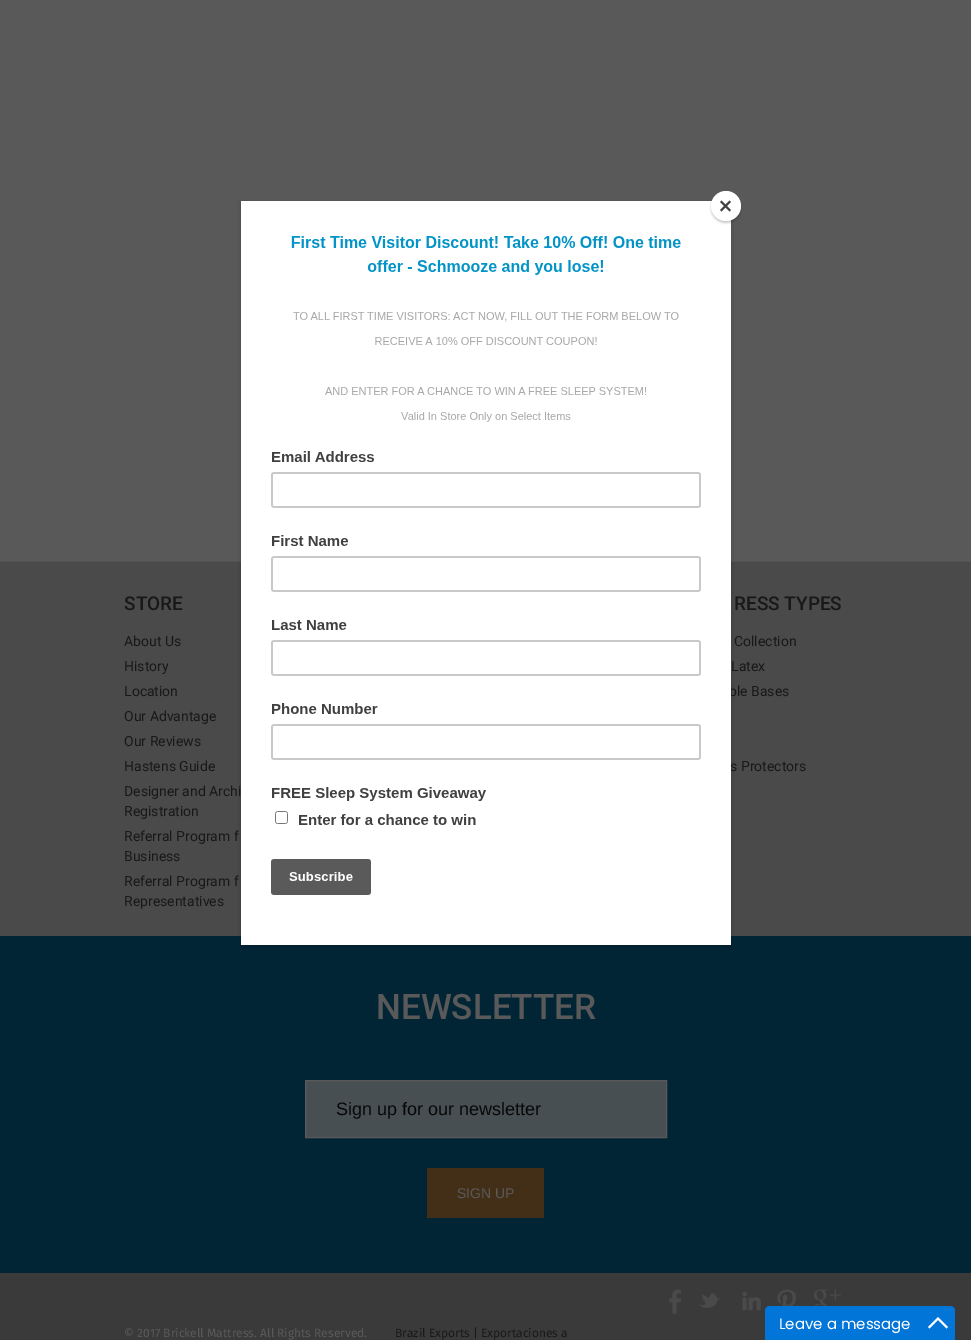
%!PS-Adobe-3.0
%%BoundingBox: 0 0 971 1340
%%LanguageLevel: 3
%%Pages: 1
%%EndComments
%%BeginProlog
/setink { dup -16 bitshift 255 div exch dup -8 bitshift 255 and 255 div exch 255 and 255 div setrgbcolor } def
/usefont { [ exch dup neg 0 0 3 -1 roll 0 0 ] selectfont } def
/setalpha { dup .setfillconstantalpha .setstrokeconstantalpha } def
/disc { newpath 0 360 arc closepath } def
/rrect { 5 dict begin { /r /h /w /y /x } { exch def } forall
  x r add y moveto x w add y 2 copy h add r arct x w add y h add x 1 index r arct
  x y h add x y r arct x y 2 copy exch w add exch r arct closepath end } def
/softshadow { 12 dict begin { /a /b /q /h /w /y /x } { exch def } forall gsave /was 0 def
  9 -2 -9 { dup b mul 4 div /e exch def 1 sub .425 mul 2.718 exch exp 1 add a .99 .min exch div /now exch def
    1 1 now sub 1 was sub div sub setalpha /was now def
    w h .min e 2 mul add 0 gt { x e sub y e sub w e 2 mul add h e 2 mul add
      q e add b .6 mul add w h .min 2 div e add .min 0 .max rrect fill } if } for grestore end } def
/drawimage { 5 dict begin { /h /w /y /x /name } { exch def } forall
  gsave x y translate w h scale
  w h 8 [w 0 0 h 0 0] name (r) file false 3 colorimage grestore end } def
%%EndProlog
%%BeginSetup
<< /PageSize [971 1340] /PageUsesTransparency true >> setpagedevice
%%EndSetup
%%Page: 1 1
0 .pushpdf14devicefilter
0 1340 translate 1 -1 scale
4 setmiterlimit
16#595959 setink
0 0 971 1340 rectfill
[
    [0 561 971 1 16#535353]
    [0 562 971 374 16#4A4A4A]
    [0 936 971 337 16#022536]
] { aload pop setink rectfill } forall
16#000000 setink
241 203 490 744 0 2 0.2 softshadow
/Roboto-Regular 14 usefont
16#181818 setink
729 696 moveto (ble Bases) show
730 771 moveto (s Protectors) show
(img1.raw) 241 201 490 744 drawimage
16#000000 setink
711 193 30 30 15 1 0.2 softshadow
16#FFFFFF setink
726 206 15 disc fill
16#414141 setink
729.5 200.5 moveto 731 202 lineto 721.5 211.5 lineto 720 210 lineto closepath fill
720 202 moveto 721.5 200.5 lineto 731 210 lineto 729.5 211.5 lineto closepath fill
/Roboto-Medium 19 usefont
16#181818 setink
124 610 moveto (STORE) show
/Roboto-Regular 14 usefont
[
    [(About Us) 124 646]
    [(History) 124 671]
    [(Location) 124 696]
    [(Our Advantage) 124 721]
    [(Our Reviews) 124 746]
    [(Hastens Guide) 124 771]
    [(Designer and Archi) 124 796]
    [(Registration) 124 816]
    [(Referral Program f) 124 841]
    [(Business) 124 861]
    [(Referral Program f) 124 886]
    [(Representatives) 124 906]
] { aload pop moveto show } forall
/Roboto-Medium 19 usefont
734 610 moveto (RESS TYPES) show
/Roboto-Regular 14 usefont
734 646 moveto (Collection) show
731 671 moveto (Latex) show
/Roboto-Medium 35 usefont
16#595959 setink
376 1019 moveto (NEWSLETTER) show
16#484F52 setink
305.5 1080.5 moveto 666.5 1080.5 lineto 666.5 1137.5 lineto 305.5 1137.5 lineto closepath gsave fill grestore
16#595959 setink
stroke
/LiberationSans-Regular 18 usefont
16#070808 setink
336 1115 moveto (Sign up for our newsletter) show
16#432F18 setink
427 1168 117 50 rectfill
/LiberationSans-Regular 14 usefont
16#595959 setink
457 1198 moveto (SIGN UP) show
16#3A3A3A setink
0 1273 971 67 rectfill
(img2.raw) 669 1289 12 25 drawimage
(img3.raw) 699 1293 21 15 drawimage
(img4.raw) 742 1291 19 20 drawimage
(img5.raw) 777 1289 19 17 drawimage
(img6.raw) 814 1289 27 17 drawimage
/FiraSans-Regular 12 usefont
16#595959 setink
124 1337 moveto (© 2017 Brickell Mattress. All Rights Reserved.) show
16#181818 setink
395 1337 moveto (Brazil Exports | Exportaciones a) show
16#0275D8 setink
770 1306 moveto 950 1306 lineto 953 1306 955 1308 955 1311 curveto 955 1340 lineto 765 1340 lineto 765 1311 lineto 765 1308 767 1306 770 1306 curveto closepath fill
/Poppins-Regular 15 usefont
16#FFFFFF setink
779 1329 moveto (Leave a message) show
938 1317 moveto 948 1327 lineto 946.5 1328.5 lineto 938 1320 lineto 929.5 1328.5 lineto 928 1327 lineto closepath fill
.poppdf14devicefilter showpage
%%EOF
